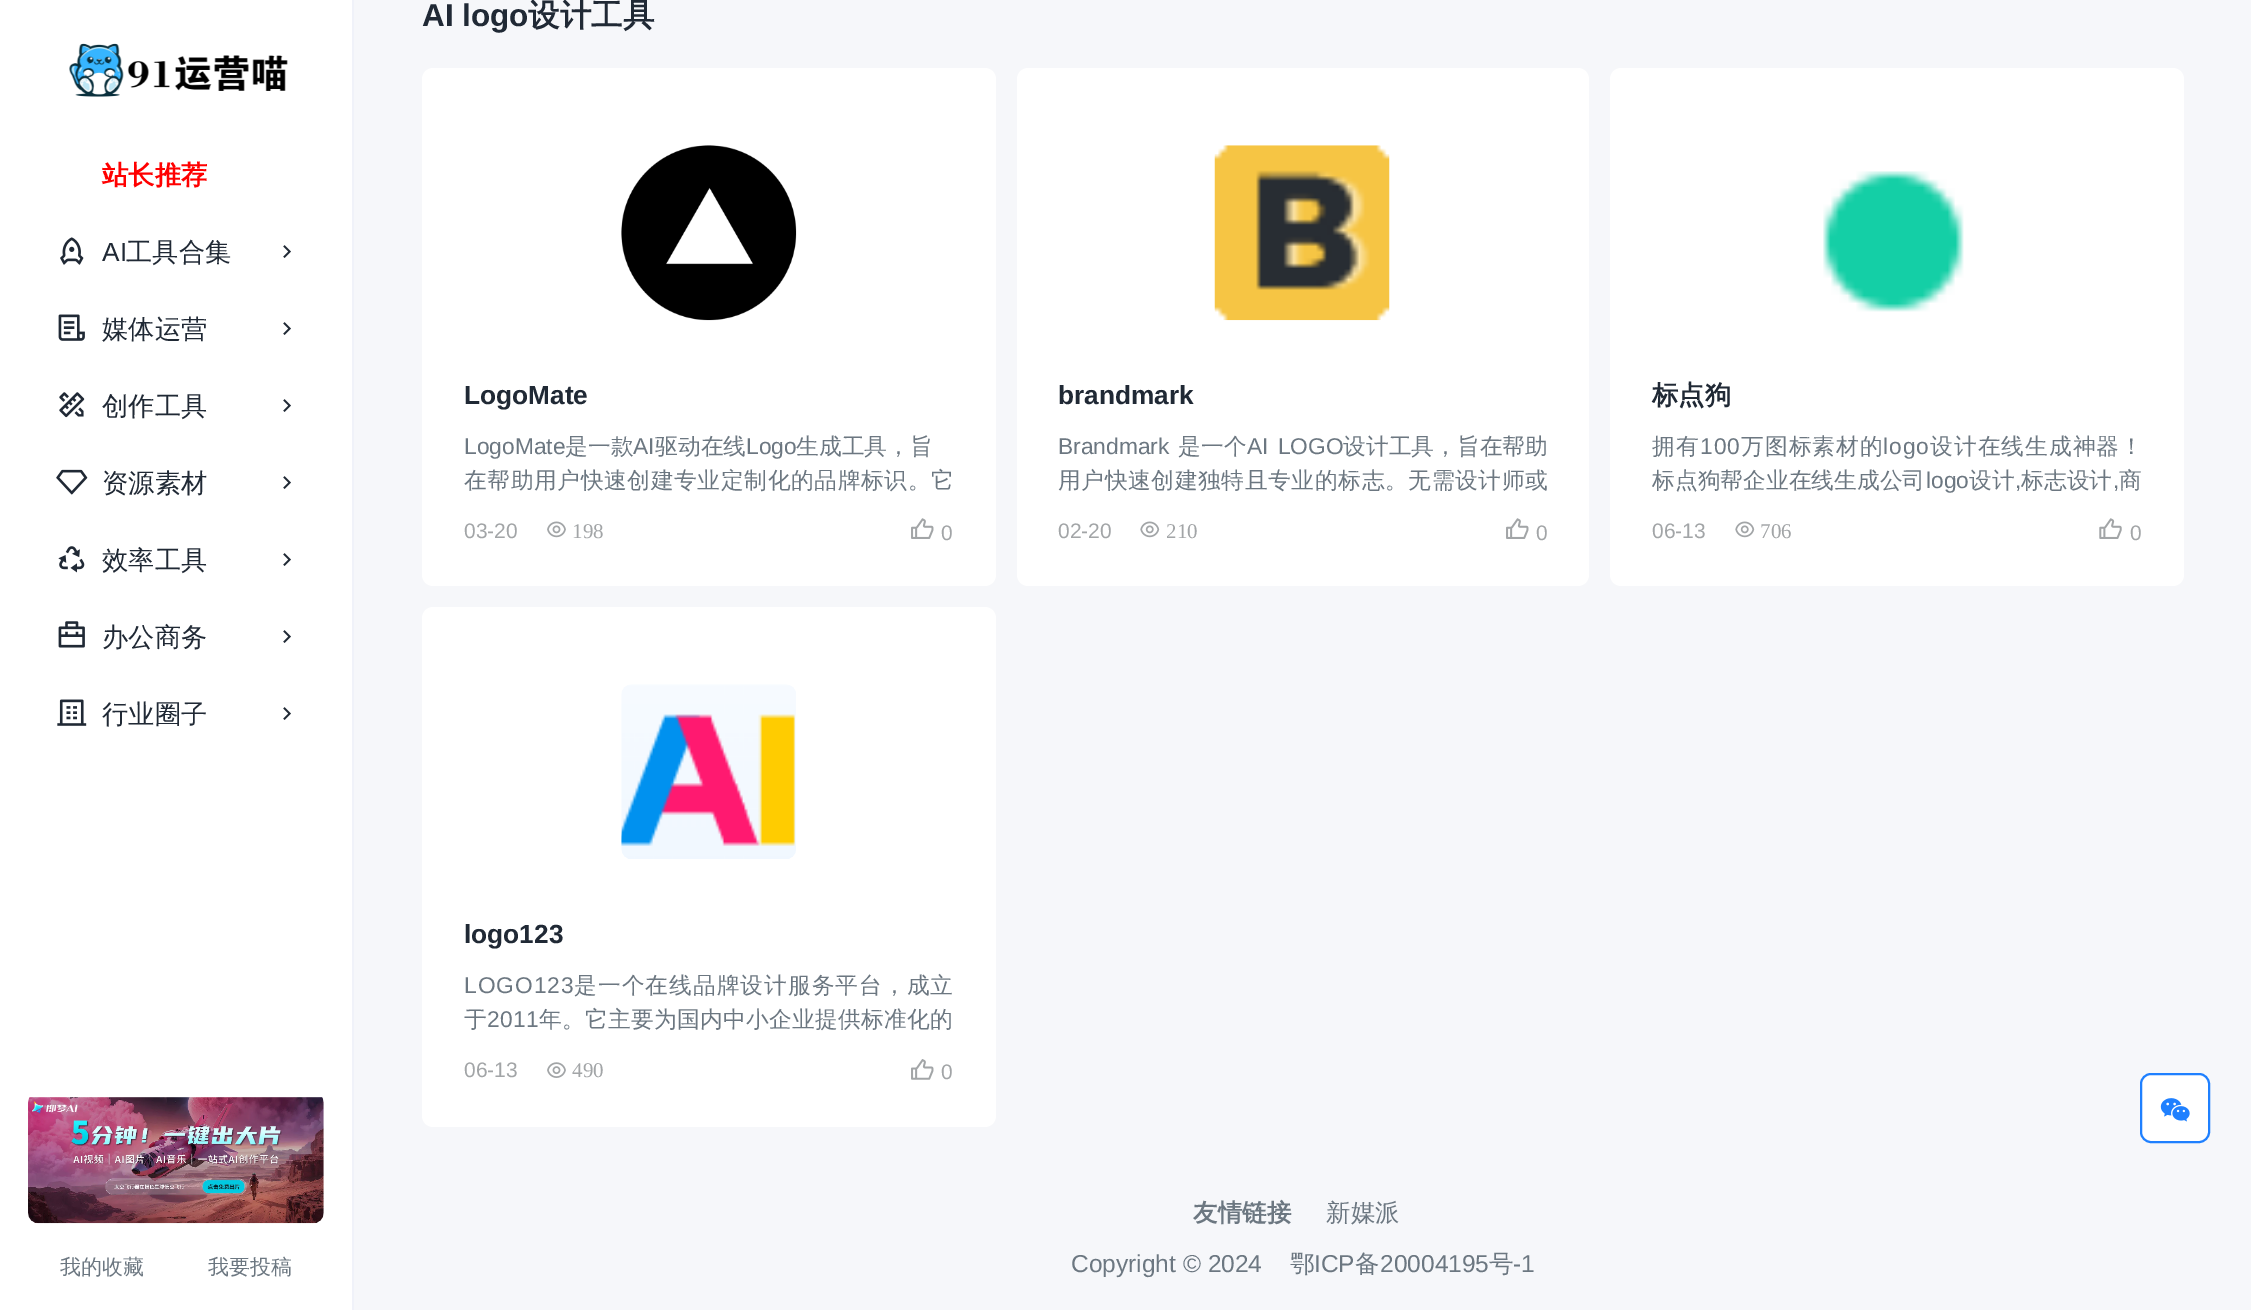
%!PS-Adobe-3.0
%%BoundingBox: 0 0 2251 1310
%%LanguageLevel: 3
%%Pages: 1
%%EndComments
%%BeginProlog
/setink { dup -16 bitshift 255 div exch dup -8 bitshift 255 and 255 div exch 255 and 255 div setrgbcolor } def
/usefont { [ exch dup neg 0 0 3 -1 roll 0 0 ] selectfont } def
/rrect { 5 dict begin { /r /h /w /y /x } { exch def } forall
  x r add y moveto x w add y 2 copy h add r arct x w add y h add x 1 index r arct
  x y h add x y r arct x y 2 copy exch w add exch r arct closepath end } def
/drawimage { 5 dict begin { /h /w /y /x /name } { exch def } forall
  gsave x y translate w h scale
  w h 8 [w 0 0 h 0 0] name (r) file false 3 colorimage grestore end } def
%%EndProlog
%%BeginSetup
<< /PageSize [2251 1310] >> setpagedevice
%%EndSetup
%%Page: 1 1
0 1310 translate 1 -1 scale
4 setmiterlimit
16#F6F7FA setink
0 0 2251 1310 rectfill
16#FFFFFF setink
0 0 352 1310 rectfill
16#F0F2F9 setink
352 0 2 1310 rectfill
(img1.raw) 69 43 219 54 drawimage
/WenQuanYiZenHei-Bold 26.25 usefont
16#FF0000 setink
102 184 moveto (站长推荐) show
(img2.raw) 60 237 24 28 drawimage
/LiberationSans-Regular 26.25 usefont
16#202935 setink
102 261 moveto (AI) show
/WenQuanYiZenHei-Medium 26.25 usefont
126 261 moveto (工具合集) show
(img3.raw) 283 245 8 13 drawimage
(img4.raw) 58 314 27 27 drawimage
102 338 moveto (媒体运营) show
(img3.raw) 283 322 8 13 drawimage
(img5.raw) 59 392 26 26 drawimage
102 415 moveto (创作工具) show
(img3.raw) 283 399 8 13 drawimage
(img6.raw) 56 469 32 26 drawimage
102 492 moveto (资源素材) show
(img3.raw) 283 476 8 13 drawimage
(img7.raw) 58 546 27 27 drawimage
102 569 moveto (效率工具) show
(img3.raw) 283 553 8 13 drawimage
(img8.raw) 58 621 27 27 drawimage
102 646 moveto (办公商务) show
(img3.raw) 283 630 8 13 drawimage
(img9.raw) 57 699 30 27 drawimage
102 723 moveto (行业圈子) show
(img3.raw) 283 707 8 13 drawimage
(img10.raw) 28 1097 296 127 drawimage
/WenQuanYiZenHei-Medium 21 usefont
16#6C7781 setink
60 1274 moveto (我的收藏) show
208 1274 moveto (我要投稿) show
/LiberationSans-Bold 31.5 usefont
16#202935 setink
422 26 moveto (AI logo) show
/WenQuanYiZenHei-Bold 31.5 usefont
528 26 moveto (设计工具) show
16#FFFFFF setink
422 68 574 518 11 rrect fill
(img11.raw) 621 145 176 176 drawimage
/LiberationSans-Bold 26.25 usefont
16#202935 setink
464 404 moveto (LogoMate) show
/LiberationSans-Regular 22.75 usefont
16#6C7781 setink
464 454 moveto (LogoMate) show
/WenQuanYiZenHei-Medium 22.75 usefont
565 454 moveto (是一款) show
/LiberationSans-Regular 22.75 usefont
633 454 moveto (AI) show
/WenQuanYiZenHei-Medium 22.75 usefont
655 454 moveto (驱动在线) show
/LiberationSans-Regular 22.75 usefont
746 454 moveto (Logo) show
/WenQuanYiZenHei-Medium 22.75 usefont
796 454 moveto (生成工具，旨) show
464 488 moveto 0.6 0 (在帮助用户快速创建专业定制化的品牌标识。它) ashow
/LiberationSans-Regular 21 usefont
16#A2A5A7 setink
464 538 moveto (03-20) show
(img12.raw) 547 521 19 17 drawimage
/LiberationSerif-Regular 21 usefont
572 538 moveto (198) show
(img13.raw) 911 518 23 21 drawimage
/LiberationSans-Regular 21 usefont
941 540 moveto (0) show
16#FFFFFF setink
1017 68 572 518 11 rrect fill
(img14.raw) 1214 145 176 176 drawimage
/LiberationSans-Bold 26.25 usefont
16#202935 setink
1058 404 moveto (brandmark) show
/LiberationSans-Regular 22.75 usefont
16#6C7781 setink
1058 454 moveto (Brandmark) show
/WenQuanYiZenHei-Medium 22.75 usefont
1178 454 moveto (是一个) show
/LiberationSans-Regular 22.75 usefont
1247 454 moveto 3 0 32 (AI LOGO) widthshow
/WenQuanYiZenHei-Medium 22.75 usefont
1343 454 moveto (设计工具，旨在帮助) show
1058 488 moveto 0.6 0 (用户快速创建独特且专业的标志。无需设计师或) ashow
/LiberationSans-Regular 21 usefont
16#A2A5A7 setink
1058 538 moveto (02-20) show
(img15.raw) 1140 521 20 17 drawimage
/LiberationSerif-Regular 21 usefont
1166 538 moveto (210) show
(img13.raw) 1506 518 23 21 drawimage
/LiberationSans-Regular 21 usefont
1536 540 moveto (0) show
16#FFFFFF setink
1610 68 574 518 11 rrect fill
(img16.raw) 1823 171 141 141 drawimage
/WenQuanYiZenHei-Bold 26.25 usefont
16#202935 setink
1652 404 moveto (标点狗) show
/WenQuanYiZenHei-Medium 22.75 usefont
16#6C7781 setink
1652 454 moveto 1 0 (拥有) ashow
/LiberationSans-Regular 22.75 usefont
1700 454 moveto 1 0 (100) ashow
/WenQuanYiZenHei-Medium 22.75 usefont
1741 454 moveto 1 0 (万图标素材的) ashow
/LiberationSans-Regular 22.75 usefont
1883 454 moveto 1 0 (logo) ashow
/WenQuanYiZenHei-Medium 22.75 usefont
1930 454 moveto 1 0 (设计在线生成神器！) ashow
1652 488 moveto (标点狗帮企业在线生成公司) show
/LiberationSans-Regular 22.75 usefont
1926 488 moveto (logo) show
/WenQuanYiZenHei-Medium 22.75 usefont
1969 488 moveto (设计) show
/LiberationSans-Regular 22.75 usefont
2015 488 moveto (,) show
/WenQuanYiZenHei-Medium 22.75 usefont
2021 488 moveto (标志设计) show
/LiberationSans-Regular 22.75 usefont
2113 488 moveto (,) show
/WenQuanYiZenHei-Medium 22.75 usefont
2119 488 moveto (商) show
/LiberationSans-Regular 21 usefont
16#A2A5A7 setink
1652 538 moveto (06-13) show
(img15.raw) 1735 521 20 17 drawimage
/LiberationSerif-Regular 21 usefont
1760 538 moveto (706) show
(img17.raw) 2099 518 23 21 drawimage
/LiberationSans-Regular 21 usefont
2130 540 moveto (0) show
16#FFFFFF setink
422 607 574 520 11 rrect fill
(img18.raw) 621 684 175 175 drawimage
/LiberationSans-Bold 26.25 usefont
16#202935 setink
464 943 moveto (logo123) show
/LiberationSans-Regular 22.75 usefont
16#6C7781 setink
464 993 moveto 1 0 (LOGO123) ashow
/WenQuanYiZenHei-Medium 22.75 usefont
574 993 moveto 1 0 (是一个在线品牌设计服务平台，成立) ashow
464 1027 moveto 0.25 0 (于) ashow
/LiberationSans-Regular 22.75 usefont
487 1027 moveto 0.25 0 (2011) ashow
/WenQuanYiZenHei-Medium 22.75 usefont
539 1027 moveto 0.25 0 (年。它主要为国内中小企业提供标准化的) ashow
/LiberationSans-Regular 21 usefont
16#A2A5A7 setink
464 1077 moveto (06-13) show
(img19.raw) 547 1062 19 16 drawimage
/LiberationSerif-Regular 21 usefont
572 1077 moveto (490) show
(img20.raw) 911 1059 23 21 drawimage
/LiberationSans-Regular 21 usefont
941 1079 moveto (0) show
16#FFFFFF setink
2141 1074 68 68 10 rrect gsave fill grestore
16#1F80FF setink
2 setlinewidth
stroke
(img21.raw) 2160 1098 30 24 drawimage
/WenQuanYiZenHei-Bold 24.5 usefont
16#6C7781 setink
1193 1221 moveto (友情链接) show
/WenQuanYiZenHei-Medium 24.5 usefont
1326 1221 moveto (新媒派) show
/LiberationSans-Regular 24.5 usefont
1071 1272 moveto (Copyright © 2024) show
/WenQuanYiZenHei-Medium 24.5 usefont
1290 1272 moveto (鄂) show
/LiberationSans-Regular 24.5 usefont
1314 1272 moveto (ICP) show
/WenQuanYiZenHei-Medium 24.5 usefont
1355 1272 moveto (备) show
/LiberationSans-Regular 24.5 usefont
1380 1272 moveto (20004195) show
/WenQuanYiZenHei-Medium 24.5 usefont
1489 1272 moveto (号) show
/LiberationSans-Regular 24.5 usefont
1513 1272 moveto (-1) show
showpage
%%EOF
